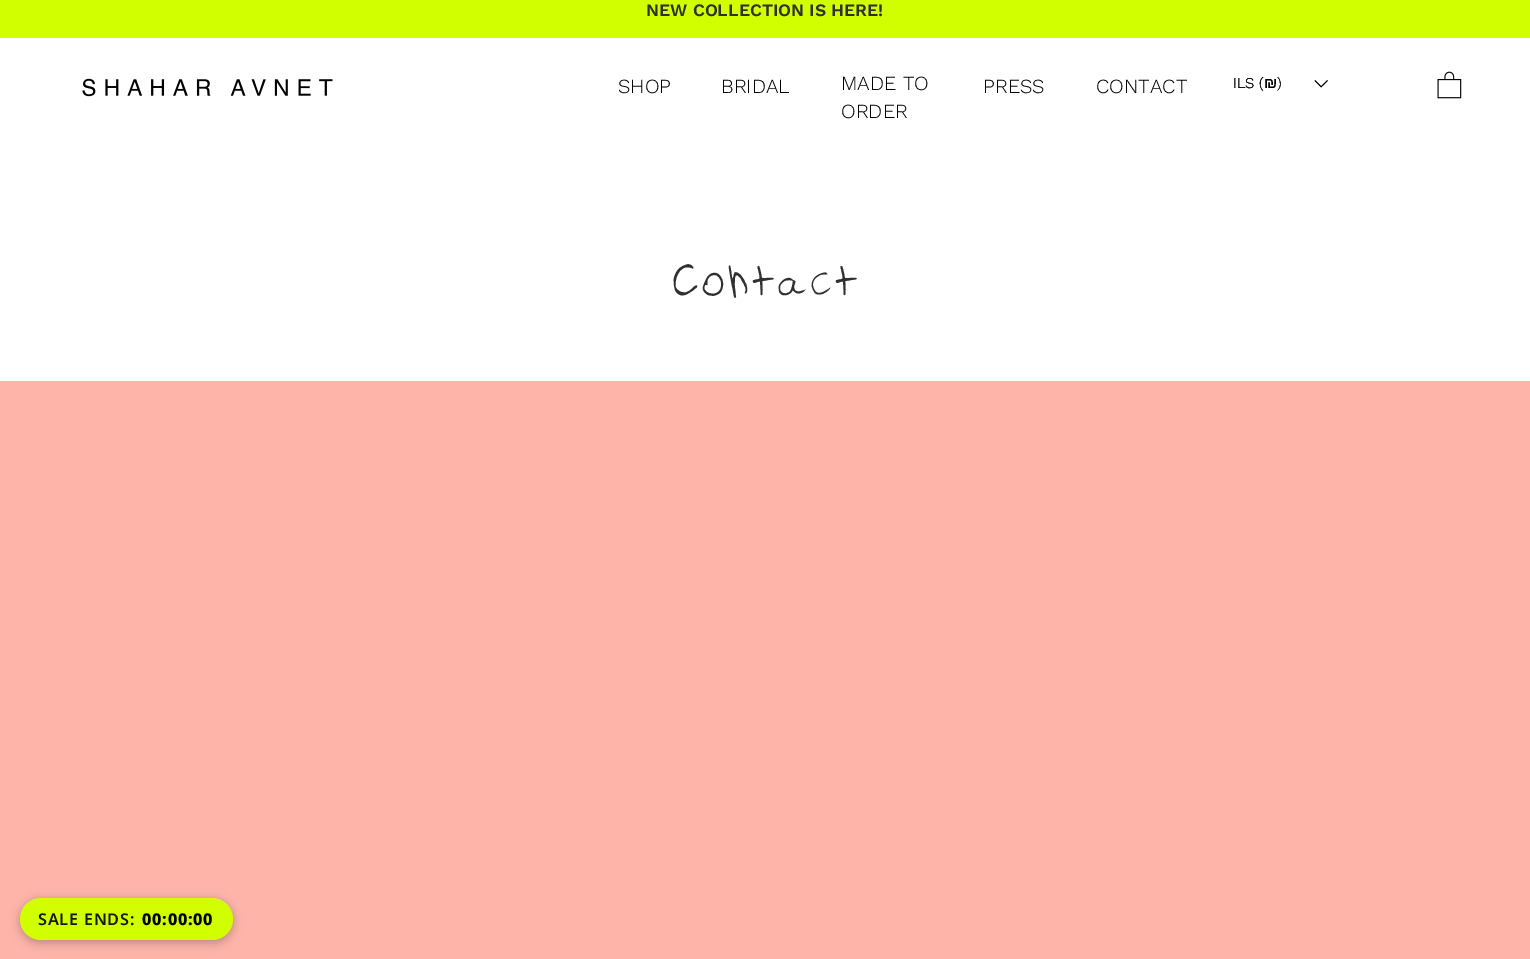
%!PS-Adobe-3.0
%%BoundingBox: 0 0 1530 959
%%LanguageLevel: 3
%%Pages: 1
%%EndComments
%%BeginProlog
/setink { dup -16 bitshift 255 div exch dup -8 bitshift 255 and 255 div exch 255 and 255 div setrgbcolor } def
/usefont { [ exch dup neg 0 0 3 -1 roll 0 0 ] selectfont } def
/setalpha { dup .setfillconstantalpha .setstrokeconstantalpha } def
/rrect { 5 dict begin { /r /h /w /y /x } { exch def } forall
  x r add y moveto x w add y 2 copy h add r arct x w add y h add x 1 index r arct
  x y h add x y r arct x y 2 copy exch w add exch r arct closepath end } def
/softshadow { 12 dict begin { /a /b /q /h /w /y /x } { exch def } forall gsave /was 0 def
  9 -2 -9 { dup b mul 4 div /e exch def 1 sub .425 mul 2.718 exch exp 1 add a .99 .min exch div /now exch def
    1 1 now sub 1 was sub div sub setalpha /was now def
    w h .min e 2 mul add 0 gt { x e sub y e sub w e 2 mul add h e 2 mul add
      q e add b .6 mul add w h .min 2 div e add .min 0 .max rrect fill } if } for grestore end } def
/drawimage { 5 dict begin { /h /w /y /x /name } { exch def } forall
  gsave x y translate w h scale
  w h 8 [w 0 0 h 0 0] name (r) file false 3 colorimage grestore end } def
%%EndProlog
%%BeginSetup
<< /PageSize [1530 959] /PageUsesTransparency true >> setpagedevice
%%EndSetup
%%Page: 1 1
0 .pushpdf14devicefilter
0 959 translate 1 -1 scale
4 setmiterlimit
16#FFFFFF setink
0 0 1530 959 rectfill
16#D2FF00 setink
0 0 1530 38 rectfill
/WorkSans-SemiBold 17.5 usefont
16#303030 setink
646 16 moveto (NEW COLLECTION IS HERE!) show
/WorkSans-Light 20 usefont
16#000000 setink
841 90 moveto (MADE TO) show
841 118 moveto (ORDER) show
/WorkSans-Light 15 usefont
1233 88 moveto (ILS \() show
/LiberationSans-Bold 15 usefont
1264 88 moveto (₪) show
/WorkSans-Light 15 usefont
1277 88 moveto (\)) show
(img1.raw) 1314 80 14 8 drawimage
(img2.raw) 1437 71 25 28 drawimage
(img3.raw) 82 78 251 19 drawimage
/WorkSans-Light 20 usefont
[
    [(SHOP) 618 93]
    [(BRIDAL) 721 93]
    [(PRESS) 983 93]
    [(CONTACT) 1096 93]
] { aload pop moveto show } forall
/WorkSans-Light 15 usefont
1233 88 moveto (ILS \() show
1277 88 moveto (\)) show
(img4.raw) 1314 80 14 8 drawimage
/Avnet-Regular 49 usefont
16#303030 setink
671 288 moveto (Contact) show
16#FFB4AA setink
0 381 1530 578 rectfill
16#000000 setink
20 900 213 43 21.5 5 0.25 softshadow
16#D2FF00 setink
20 898 213 42 21 rrect fill
/NotoSans-SemiBold 16.25 usefont
16#151A00 setink
38 925 moveto 0.75 0 (SALE ENDS:) ashow
/NotoSans-ExtraBold 16.25 usefont
16#000000 setink
142 925 moveto 0.75 0 (00:00:00) ashow
.poppdf14devicefilter showpage
%%EOF
